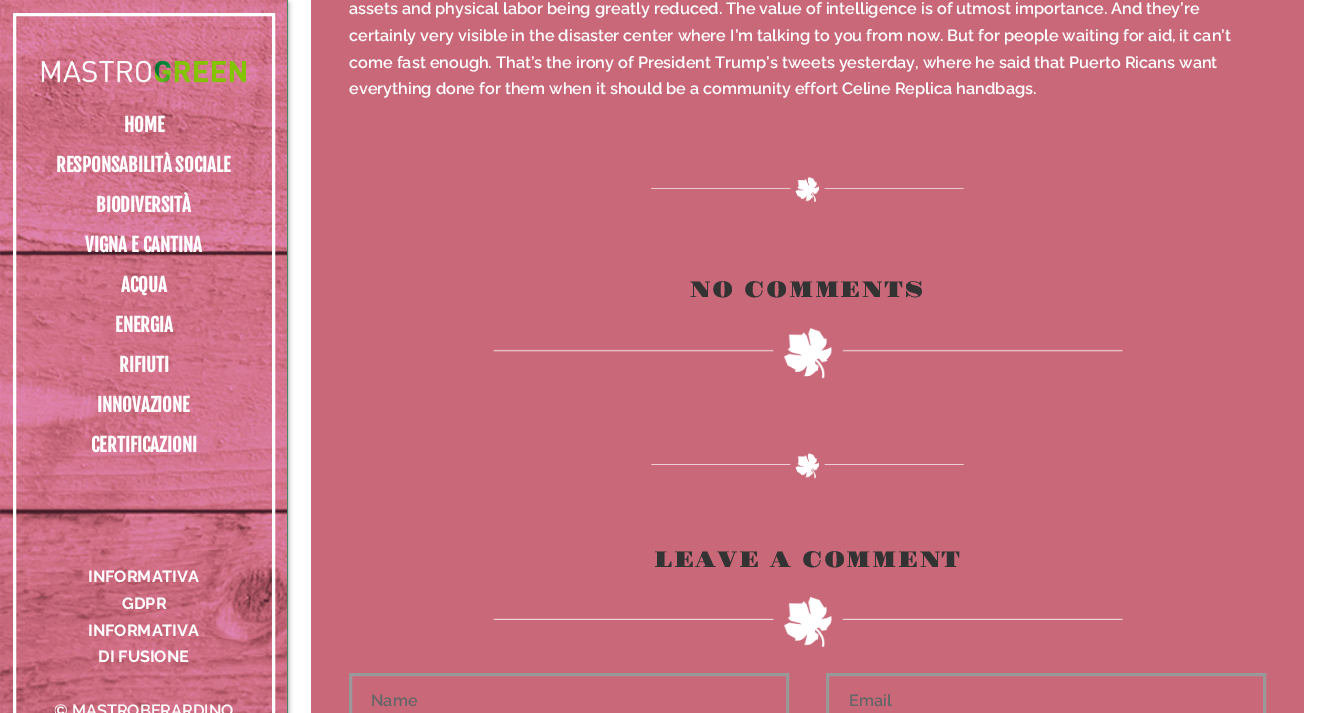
%!PS-Adobe-3.0
%%BoundingBox: 0 0 1327 713
%%LanguageLevel: 3
%%Pages: 1
%%EndComments
%%BeginProlog
/setink { dup -16 bitshift 255 div exch dup -8 bitshift 255 and 255 div exch 255 and 255 div setrgbcolor } def
/usefont { [ exch dup neg 0 0 3 -1 roll 0 0 ] selectfont } def
/setalpha { dup .setfillconstantalpha .setstrokeconstantalpha } def
/rrect { 5 dict begin { /r /h /w /y /x } { exch def } forall
  x r add y moveto x w add y 2 copy h add r arct x w add y h add x 1 index r arct
  x y h add x y r arct x y 2 copy exch w add exch r arct closepath end } def
/softshadow { 12 dict begin { /a /b /q /h /w /y /x } { exch def } forall gsave /was 0 def
  9 -2 -9 { dup b mul 4 div /e exch def 1 sub .425 mul 2.718 exch exp 1 add a .99 .min exch div /now exch def
    1 1 now sub 1 was sub div sub setalpha /was now def
    w h .min e 2 mul add 0 gt { x e sub y e sub w e 2 mul add h e 2 mul add
      q e add b .6 mul add w h .min 2 div e add .min 0 .max rrect fill } if } for grestore end } def
/drawimage { 5 dict begin { /h /w /y /x /name } { exch def } forall
  gsave x y translate w h scale
  w h 8 [w 0 0 h 0 0] name (r) file false 3 colorimage grestore end } def
%%EndProlog
%%BeginSetup
<< /PageSize [1327 713] /PageUsesTransparency true >> setpagedevice
%%EndSetup
%%Page: 1 1
0 .pushpdf14devicefilter
0 713 translate 1 -1 scale
4 setmiterlimit
16#FFFFFF setink
0 0 1327 713 rectfill
16#000000 setink
0 3 288 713 0 2.5 0.45 softshadow
0.8 setalpha
16#287C51 setink
287 0 1 713 rectfill
1 setalpha
(img1.raw) 0 0 287 713 drawimage
16#FFFFFF setink
3 setlinewidth
14.5 14.5 259 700 rectstroke
(img2.raw) 41 60 206 23 drawimage
/FjallaOne-Bold 18.75 usefont
[
    [(HOME) 124 132]
    [(RESPONSABILITÀ SOCIALE) 56 172]
    [(BIODIVERSITÀ) 96 212]
    [(VIGNA E CANTINA) 85 252]
    [(ACQUA) 121 292]
    [(ENERGIA) 115 332]
    [(RIFIUTI) 119 372]
    [(INNOVAZIONE) 97 412]
    [(CERTIFICAZIONI) 91 452]
] { aload pop moveto show } forall
/Raleway-Bold 16.25 usefont
[
    [(INFORMATIVA) 88 582]
    [(GDPR) 122 609]
    [(INFORMATIVA) 88 636]
    [(DI FUSIONE) 98 662]
] { aload pop moveto show } forall
/Raleway-SemiBold 16.25 usefont
54 716 moveto (© MASTROBERARDINO) show
16#C96879 setink
311 0 993 713 rectfill
16#FFFFFF setink
[
    [(assets and physical labor being greatly reduced. The value of intelligence is of utmost importance. And they’re) 349 14]
    [(certainly very visible in the disaster center where I’m talking to you from now. But for people waiting for aid, it can’t) 349 41]
    [(come fast enough. That’s the irony of President Trump’s tweets yesterday, where he said that Puerto Ricans want) 349 68]
    [(everything done for them when it should be a community effort Celine Replica handbags.) 349 94]
] { aload pop moveto show } forall
(img3.raw) 651 177 313 25 drawimage
/GravitasOne-Regular 22.5 usefont
16#333333 setink
690 297 moveto 1.4 0 (NO COMMENTS) ashow
(img4.raw) 493 328 630 51 drawimage
(img5.raw) 651 453 313 26 drawimage
654 567 moveto 1.4 0 (LEAVE A COMMENT) ashow
(img6.raw) 493 597 630 50 drawimage
16#999999 setink
350.5 674.5 437 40 rectstroke
/Raleway-SemiBold 16.25 usefont
16#666666 setink
371 706 moveto (Name) show
16#999999 setink
827.5 674.5 437 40 rectstroke
16#666666 setink
849 706 moveto (Email) show
.poppdf14devicefilter showpage
%%EOF
